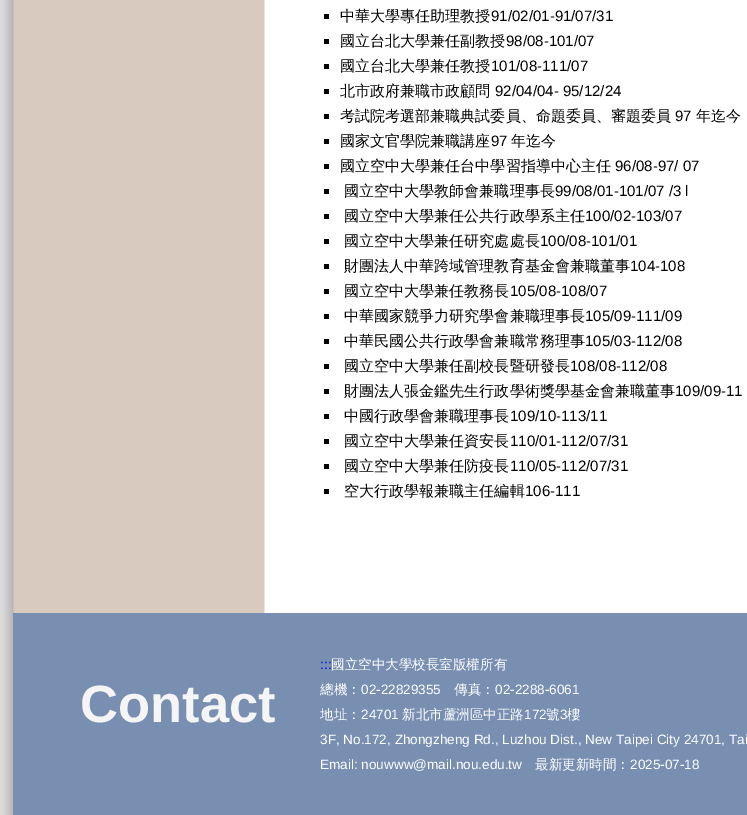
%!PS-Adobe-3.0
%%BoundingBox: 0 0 747 815
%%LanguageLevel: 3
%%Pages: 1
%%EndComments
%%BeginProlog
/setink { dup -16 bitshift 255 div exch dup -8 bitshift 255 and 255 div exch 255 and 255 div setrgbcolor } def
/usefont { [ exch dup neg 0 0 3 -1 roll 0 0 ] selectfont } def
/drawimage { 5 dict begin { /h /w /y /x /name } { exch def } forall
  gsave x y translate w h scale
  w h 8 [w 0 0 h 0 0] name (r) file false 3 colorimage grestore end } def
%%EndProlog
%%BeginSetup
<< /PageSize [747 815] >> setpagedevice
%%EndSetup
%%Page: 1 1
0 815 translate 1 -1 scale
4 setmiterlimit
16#DCDCDC setink
0 0 747 815 rectfill
(img1.raw) 2 0 745 815 drawimage
16#000000 setink
324 14 5 5 rectfill
/WenQuanYiZenHei-Medium 15.05 usefont
340 21 moveto (中華大學專任助理教授) show
/LiberationSans-Regular 15.05 usefont
491 21 moveto (91/02/01-91/07/31) show
324 39 5 5 rectfill
/WenQuanYiZenHei-Medium 15.05 usefont
340 46 moveto (國立台北大學兼任副教授) show
/LiberationSans-Regular 15.05 usefont
506 46 moveto (98/08-101/07) show
324 64 5 5 rectfill
/WenQuanYiZenHei-Medium 15.05 usefont
340 71 moveto (國立台北大學兼任教授) show
/LiberationSans-Regular 15.05 usefont
491 71 moveto (101/08-111/07) show
324 89 5 5 rectfill
/WenQuanYiZenHei-Medium 15.05 usefont
340 96 moveto (北市政府兼職市政顧問) show
/LiberationSans-Regular 15.05 usefont
495 96 moveto (92/04/04- 95/12/24) show
324 114 5 5 rectfill
/WenQuanYiZenHei-Medium 15.05 usefont
340 121 moveto (考試院考選部兼職典試委員、命題委員、審題委員) show
/LiberationSans-Regular 15.05 usefont
675 121 moveto (97) show
/WenQuanYiZenHei-Medium 15.05 usefont
696 121 moveto (年迄今) show
324 139 5 5 rectfill
340 146 moveto (國家文官學院兼職講座) show
/LiberationSans-Regular 15.05 usefont
491 146 moveto (97) show
/WenQuanYiZenHei-Medium 15.05 usefont
511 146 moveto (年迄今) show
324 164 5 5 rectfill
340 171 moveto (國立空中大學兼任台中學習指導中心主任) show
/LiberationSans-Regular 15.05 usefont
615 171 moveto (96/08-97/ 07) show
324 189 5 5 rectfill
/WenQuanYiZenHei-Medium 15.05 usefont
344 196 moveto (國立空中大學教師會兼職理事長) show
/LiberationSans-Regular 15.05 usefont
555 196 moveto (99/08/01-101/07 /3 l) show
324 214 5 5 rectfill
/WenQuanYiZenHei-Medium 15.05 usefont
344 221 moveto (國立空中大學兼任公共行政學系主任) show
/LiberationSans-Regular 15.05 usefont
585 221 moveto (100/02-103/07) show
324 239 5 5 rectfill
/WenQuanYiZenHei-Medium 15.05 usefont
344 246 moveto (國立空中大學兼任研究處處長) show
/LiberationSans-Regular 15.05 usefont
540 246 moveto (100/08-101/01) show
324 264 5 5 rectfill
/WenQuanYiZenHei-Medium 15.05 usefont
344 271 moveto (財團法人中華跨域管理教育基金會兼職董事) show
/LiberationSans-Regular 15.05 usefont
630 271 moveto (104-108) show
324 289 5 5 rectfill
/WenQuanYiZenHei-Medium 15.05 usefont
344 296 moveto (國立空中大學兼任教務長) show
/LiberationSans-Regular 15.05 usefont
510 296 moveto (105/08-108/07) show
324 314 5 5 rectfill
/WenQuanYiZenHei-Medium 15.05 usefont
344 321 moveto (中華國家競爭力研究學會兼職理事長) show
/LiberationSans-Regular 15.05 usefont
585 321 moveto (105/09-111/09) show
324 339 5 5 rectfill
/WenQuanYiZenHei-Medium 15.05 usefont
344 346 moveto (中華民國公共行政學會兼職常務理事) show
/LiberationSans-Regular 15.05 usefont
585 346 moveto (105/03-112/08) show
324 364 5 5 rectfill
/WenQuanYiZenHei-Medium 15.05 usefont
344 371 moveto (國立空中大學兼任副校長暨研發長) show
/LiberationSans-Regular 15.05 usefont
570 371 moveto (108/08-112/08) show
324 389 5 5 rectfill
/WenQuanYiZenHei-Medium 15.05 usefont
344 396 moveto (財團法人張金鑑先生行政學術獎學基金會兼職董事) show
/LiberationSans-Regular 15.05 usefont
675 396 moveto (109/09-11) show
324 414 5 5 rectfill
/WenQuanYiZenHei-Medium 15.05 usefont
344 421 moveto (中國行政學會兼職理事長) show
/LiberationSans-Regular 15.05 usefont
510 421 moveto (109/10-113/11) show
324 439 5 5 rectfill
/WenQuanYiZenHei-Medium 15.05 usefont
344 446 moveto (國立空中大學兼任資安長) show
/LiberationSans-Regular 15.05 usefont
510 446 moveto (110/01-112/07/31) show
324 464 5 5 rectfill
/WenQuanYiZenHei-Medium 15.05 usefont
344 471 moveto (國立空中大學兼任防疫長) show
/LiberationSans-Regular 15.05 usefont
510 471 moveto (110/05-112/07/31) show
324 489 5 5 rectfill
/WenQuanYiZenHei-Medium 15.05 usefont
344 496 moveto (空大行政學報兼職主任編輯) show
/LiberationSans-Regular 15.05 usefont
525 496 moveto (106-111) show
16#788FB1 setink
13 613 734 202 rectfill
/LiberationSans-Bold 52.5 usefont
16#F5F5F5 setink
80 722 moveto (Contact) show
/LiberationSans-Regular 13.55 usefont
16#0000EE setink
320 669 moveto (:::) show
/WenQuanYiZenHei-Medium 13.55 usefont
16#FFFFFF setink
331 669 moveto (國立空中大學校長室版權所有) show
320 694 moveto (總機：) show
/LiberationSans-Regular 13.55 usefont
361 694 moveto (02-22829355) show
/WenQuanYiZenHei-Medium 13.55 usefont
454 694 moveto (傳真：) show
/LiberationSans-Regular 13.55 usefont
495 694 moveto (02-2288-6061) show
/WenQuanYiZenHei-Medium 13.55 usefont
320 719 moveto (地址：) show
/LiberationSans-Regular 13.55 usefont
361 719 moveto (24701) show
/WenQuanYiZenHei-Medium 13.55 usefont
402 719 moveto (新北市蘆洲區中正路) show
/LiberationSans-Regular 13.55 usefont
524 719 moveto (172) show
/WenQuanYiZenHei-Medium 13.55 usefont
546 719 moveto (號) show
/LiberationSans-Regular 13.55 usefont
560 719 moveto (3) show
/WenQuanYiZenHei-Medium 13.55 usefont
567 719 moveto (樓) show
/LiberationSans-Regular 13.55 usefont
320 744 moveto (3F, No.172, Zhongzheng Rd., Luzhou Dist., New Taipei City 24701, Tai) show
320 769 moveto (Email: nouwww@mail.nou.edu.tw) show
/WenQuanYiZenHei-Medium 13.55 usefont
535 769 moveto (最新更新時間：) show
/LiberationSans-Regular 13.55 usefont
630 769 moveto (2025-07-18) show
showpage
%%EOF
